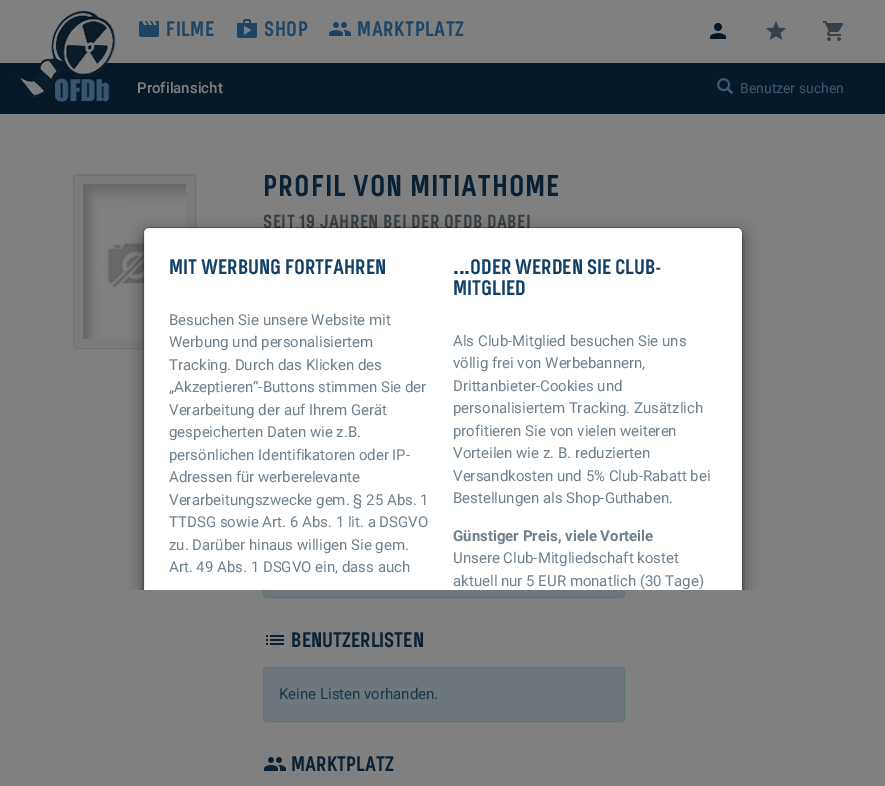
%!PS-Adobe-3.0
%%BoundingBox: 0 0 885 786
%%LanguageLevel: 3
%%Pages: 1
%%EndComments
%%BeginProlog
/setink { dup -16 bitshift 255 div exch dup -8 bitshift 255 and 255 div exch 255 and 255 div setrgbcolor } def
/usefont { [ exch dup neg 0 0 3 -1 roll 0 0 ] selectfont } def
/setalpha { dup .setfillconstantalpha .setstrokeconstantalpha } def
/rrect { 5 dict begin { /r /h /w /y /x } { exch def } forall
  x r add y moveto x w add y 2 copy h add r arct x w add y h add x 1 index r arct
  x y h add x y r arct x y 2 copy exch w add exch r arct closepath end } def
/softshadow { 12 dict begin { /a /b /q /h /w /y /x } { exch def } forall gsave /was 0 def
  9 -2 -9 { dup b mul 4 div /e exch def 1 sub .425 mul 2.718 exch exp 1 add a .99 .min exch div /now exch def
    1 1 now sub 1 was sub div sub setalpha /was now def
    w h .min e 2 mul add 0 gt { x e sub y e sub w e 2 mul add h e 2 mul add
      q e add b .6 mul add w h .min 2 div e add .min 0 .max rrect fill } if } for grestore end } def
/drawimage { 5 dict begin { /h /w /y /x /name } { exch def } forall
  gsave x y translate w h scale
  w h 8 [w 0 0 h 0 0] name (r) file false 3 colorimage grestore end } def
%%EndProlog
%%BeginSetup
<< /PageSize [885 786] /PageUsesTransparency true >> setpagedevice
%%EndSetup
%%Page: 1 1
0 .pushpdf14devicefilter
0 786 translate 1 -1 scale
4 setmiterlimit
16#808080 setink
0 0 885 786 rectfill
16#071826 setink
0 63 885 51 rectfill
(img1.raw) 15 10 101 92 drawimage
(img2.raw) 139 21 20 16 drawimage
/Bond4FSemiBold-SemiBold 21 usefont
16#1D4566 setink
166 36 moveto 0.5 0 (FILME) ashow
(img3.raw) 237 19 20 19 drawimage
264 36 moveto 0.5 0 (SHOP) ashow
(img4.raw) 329 22 22 14 drawimage
357 36 moveto 0.5 0 (MARKTPLATZ) ashow
(img5.raw) 710 23 16 16 drawimage
(img6.raw) 766 21 20 19 drawimage
(img7.raw) 823 21 20 20 drawimage
/Roboto-Medium 15 usefont
16#808080 setink
137 93 moveto (Profilansicht) show
(img8.raw) 717 78 17 16 drawimage
/Roboto-Regular 14 usefont
16#3B5A74 setink
740 93 moveto (Benutzer suchen) show
16#7B7B7B setink
73 174 123 175 3 rrect fill
16#757575 setink
76 176 moveto 193 176 lineto 195 177 lineto 195 178 lineto 195 177 195 176 194 175 curveto 96 175 lineto 89 175 74 171 74 178 curveto 74 177 75 176 76 176 curveto closepath fill
16#727272 setink
73.5 174.5 122 174 2.5 rrect stroke
(img9.raw) 83 184 103 155 drawimage
/Bond4FSemiBold-SemiBold 30 usefont
16#0A2033 setink
263 196 moveto 1 0 (PROFIL VON MITIATHOME) ashow
/Bond4FSemiBold-SemiBold 19 usefont
16#384147 setink
263 228 moveto 0.5 0 (SEIT 19 JAHREN BEI DER OFDB DABEI) ashow
16#6D777C setink
263.5 521.5 361 76 3.5 rrect gsave fill grestore
16#5E7479 setink
stroke
(img10.raw) 266 635 18 10 drawimage
/Bond4FSemiBold-SemiBold 21 usefont
16#0A2033 setink
291 647 moveto (BENUTZERLISTEN) show
16#6D777C setink
263.5 667.5 361 54 3.5 rrect gsave fill grestore
16#5E7479 setink
stroke
/Roboto-Regular 15 usefont
16#193848 setink
279 699 moveto (Keine Listen vorhanden.) show
(img11.raw) 264 757 22 14 drawimage
/Bond4FSemiBold-SemiBold 21 usefont
16#0A2033 setink
291 771 moveto (MARKTPLATZ) show
gsave
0 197 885 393 rectclip
16#000000 setink
143 232 600 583 6 7.5 0.5 softshadow
grestore
16#FFFFFF setink
149 228 moveto 737 228 lineto 740 228 742 230 742 233 curveto 742 590 lineto 144 590 lineto 144 233 lineto 144 230 146 228 149 228 curveto closepath fill
gsave
0 197 885 393 rectclip
0.2 setalpha
16#000000 setink
143.5 227.5 599 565 5.5 rrect stroke
grestore
16#134066 setink
169 274 moveto (MIT WERBUNG FORTFAHREN) show
/Roboto-Regular 15 usefont
16#70818E setink
[
    [(Besuchen Sie unsere Website mit) 169 325]
    [(Werbung und personalisiertem) 169 347]
    [(Tracking. Durch das Klicken des) 169 370]
    [(„Akzeptieren“-Buttons stimmen Sie der) 169 392]
    [(Verarbeitung der auf Ihrem Gerät) 169 415]
    [(gespeicherten Daten wie z.B.) 169 437]
    [(persönlichen Identifikatoren oder IP-) 169 460]
    [(Adressen für werberelevante) 169 482]
    [(Verarbeitungszwecke gem. § 25 Abs. 1) 169 505]
    [(TTDSG sowie Art. 6 Abs. 1 lit. a DSGVO) 169 527]
    [(zu. Darüber hinaus willigen Sie gem.) 169 550]
    [(Art. 49 Abs. 1 DSGVO ein, dass auch) 169 572]
] { aload pop moveto show } forall
/Bond4FSemiBold-SemiBold 21 usefont
16#134066 setink
453 274 moveto (...ODER WERDEN SIE CLUB-) show
453 295 moveto (MITGLIED) show
/Roboto-Regular 15 usefont
16#70818E setink
[
    [(Als Club-Mitglied besuchen Sie uns) 453 346]
    [(völlig frei von Werbebannern,) 453 368]
    [(Drittanbieter-Cookies und) 453 391]
    [(personalisiertem Tracking. Zusätzlich) 453 413]
    [(profitieren Sie von vielen weiteren) 453 436]
    [(Vorteilen wie z. B. reduzierten) 453 458]
    [(Versandkosten und 5% Club-Rabatt bei) 453 481]
    [(Bestellungen als Shop-Guthaben.) 453 503]
] { aload pop moveto show } forall
/Roboto-Bold 15 usefont
453 541 moveto (Günstiger Preis, viele Vorteile) show
/Roboto-Regular 15 usefont
453 563 moveto (Unsere Club-Mitgliedschaft kostet) show
453 586 moveto (aktuell nur 5 EUR monatlich \(30 Tage\)) show
.poppdf14devicefilter showpage
%%EOF
